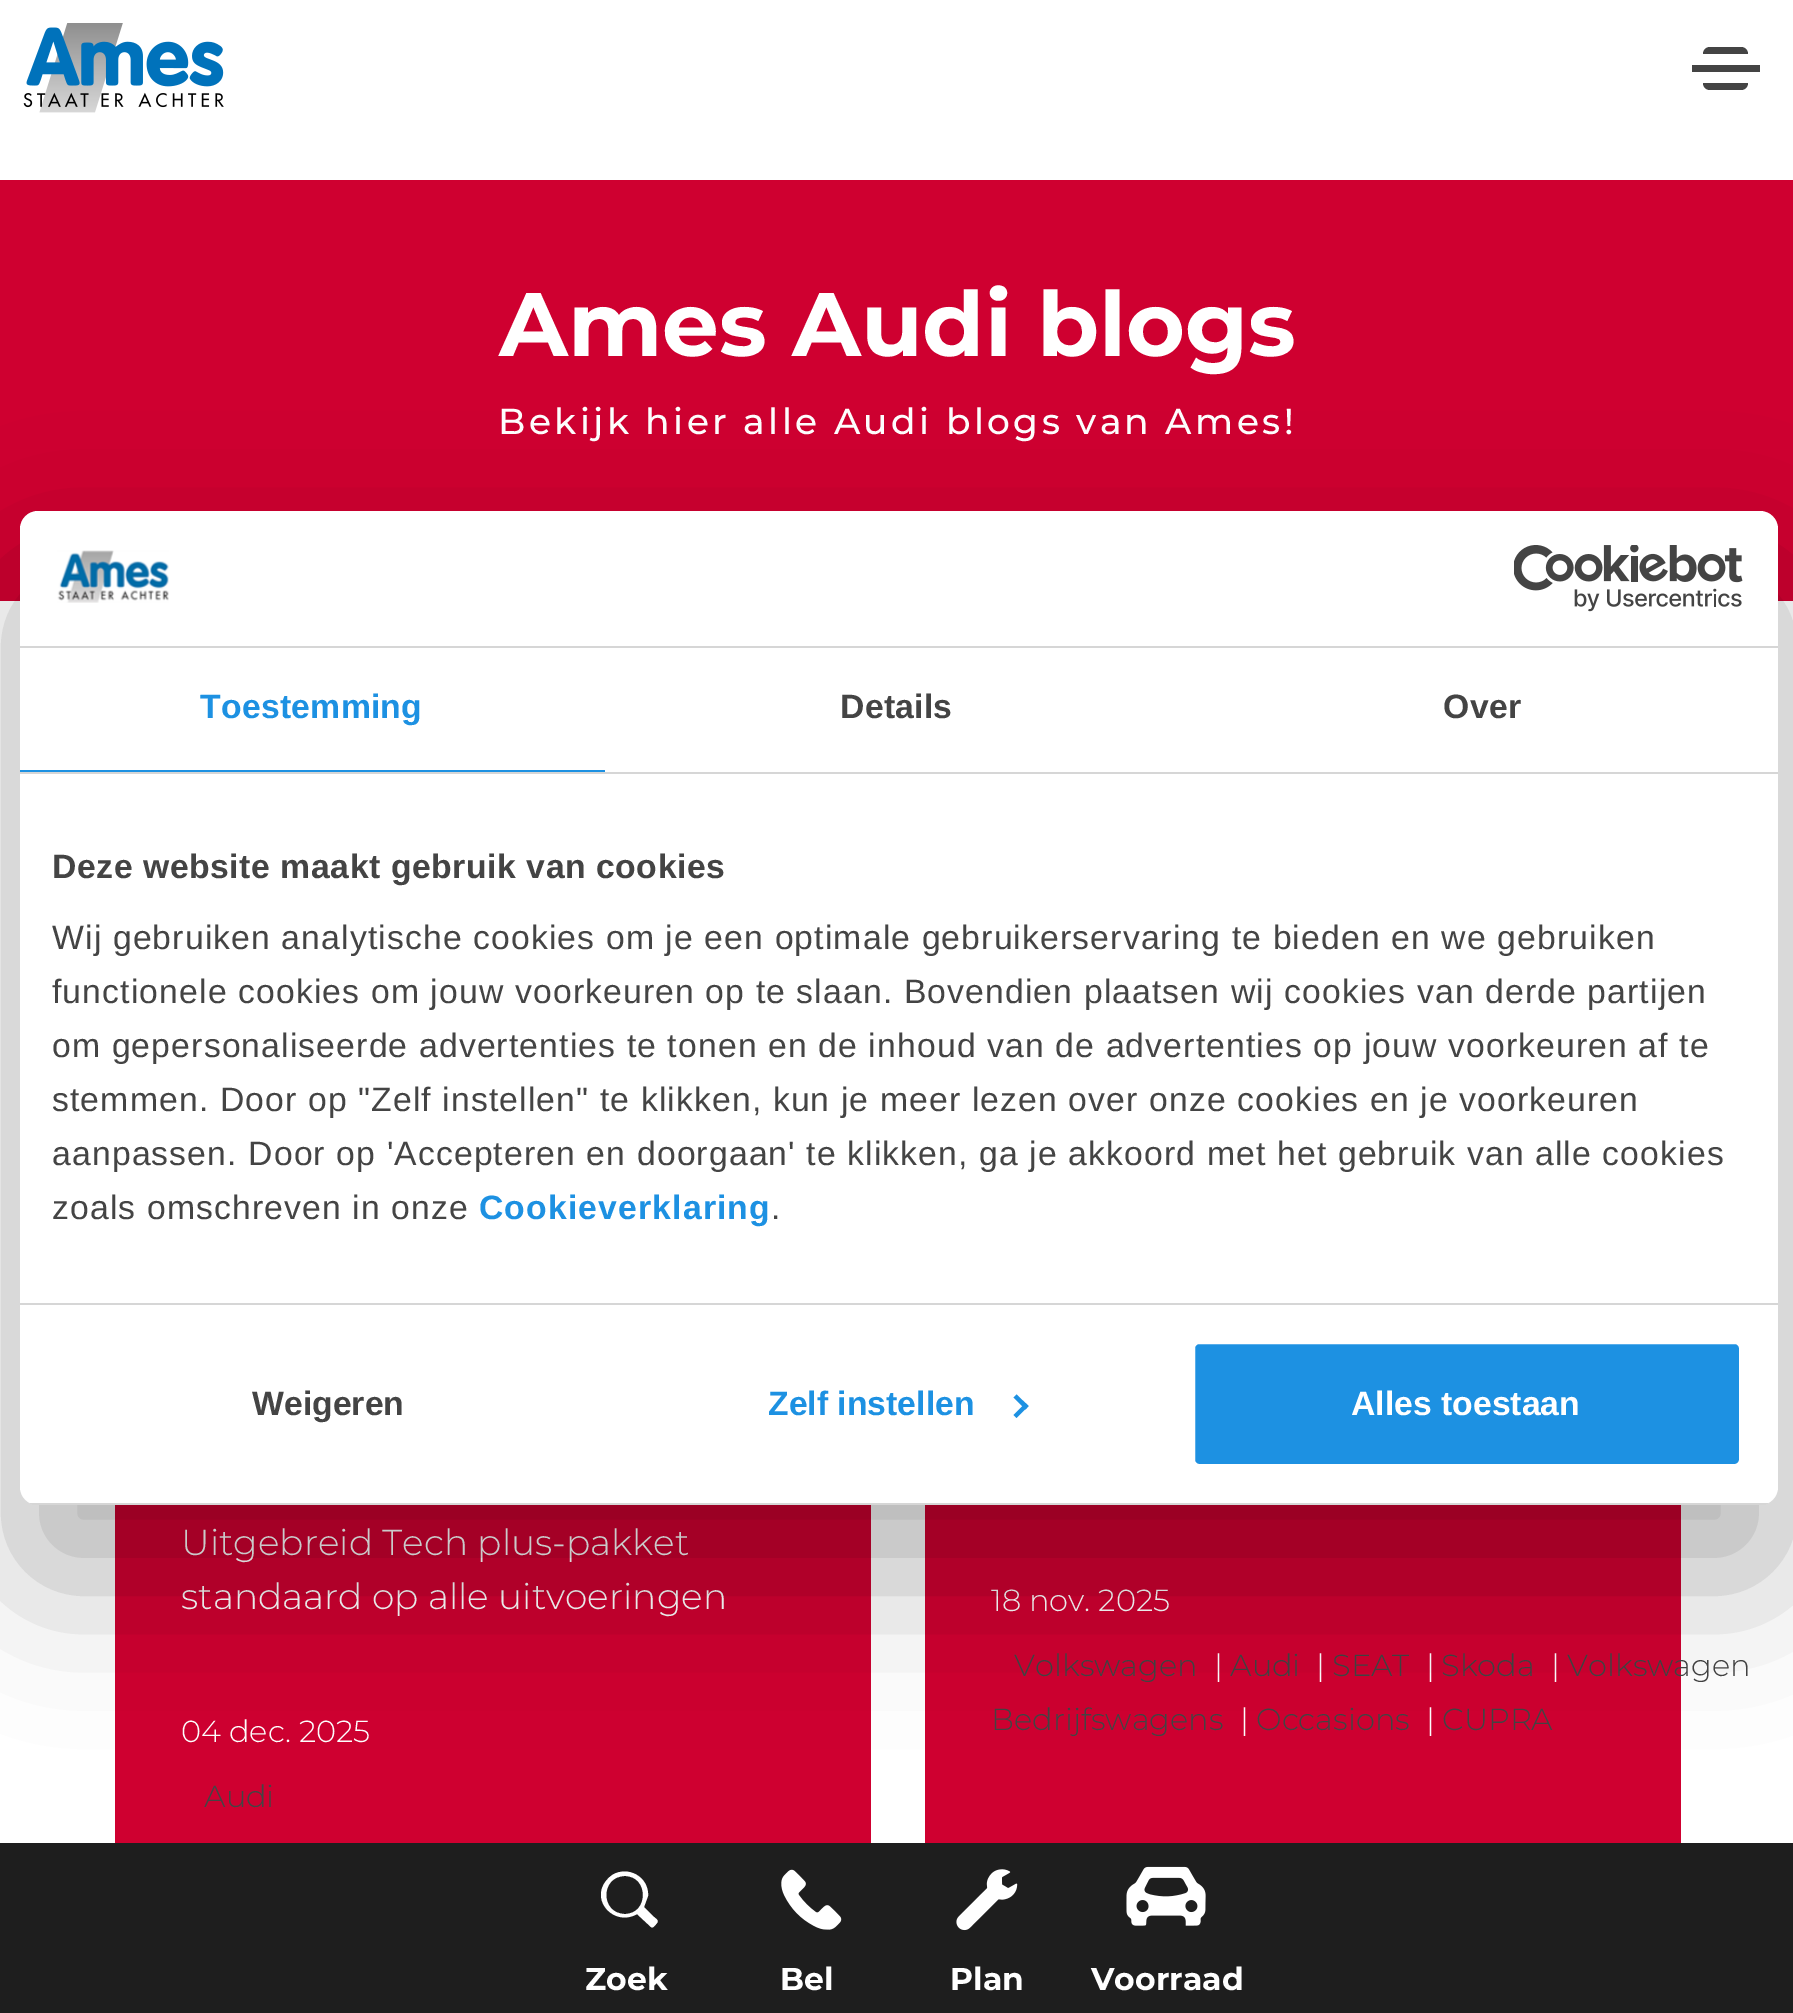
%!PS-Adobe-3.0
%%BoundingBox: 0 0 1793 2013
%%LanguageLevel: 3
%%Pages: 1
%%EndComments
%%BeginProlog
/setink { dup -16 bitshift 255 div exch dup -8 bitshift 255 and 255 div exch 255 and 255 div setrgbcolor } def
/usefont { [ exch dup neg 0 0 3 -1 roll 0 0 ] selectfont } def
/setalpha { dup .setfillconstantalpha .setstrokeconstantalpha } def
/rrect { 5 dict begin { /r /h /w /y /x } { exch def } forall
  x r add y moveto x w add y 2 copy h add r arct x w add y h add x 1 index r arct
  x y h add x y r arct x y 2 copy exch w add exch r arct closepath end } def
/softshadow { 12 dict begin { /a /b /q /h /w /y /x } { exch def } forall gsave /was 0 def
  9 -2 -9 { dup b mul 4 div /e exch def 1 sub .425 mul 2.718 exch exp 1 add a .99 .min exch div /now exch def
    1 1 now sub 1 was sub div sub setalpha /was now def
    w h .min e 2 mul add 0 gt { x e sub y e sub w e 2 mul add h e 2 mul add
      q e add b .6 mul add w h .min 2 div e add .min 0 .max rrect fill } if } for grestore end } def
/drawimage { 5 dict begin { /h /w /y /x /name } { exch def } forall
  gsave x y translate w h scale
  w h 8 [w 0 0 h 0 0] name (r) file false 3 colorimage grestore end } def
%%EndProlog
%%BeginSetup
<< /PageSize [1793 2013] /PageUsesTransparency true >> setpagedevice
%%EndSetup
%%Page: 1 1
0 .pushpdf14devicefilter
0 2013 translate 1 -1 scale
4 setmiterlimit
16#CF0030 setink
0 0 1793 2013 rectfill
16#FFFFFF setink
0 0 1793 180 rectfill
(img1.raw) 23 23 201 90 drawimage
16#444444 setink
1692 65 68 7 rectfill
1710 47 moveto 1741 47 lineto 1745 47 1748 50 1748 54 curveto 1703 54 lineto 1703 50 1706 47 1710 47 curveto closepath fill
1703 83 moveto 1748 83 lineto 1748 87 1745 90 1741 90 curveto 1710 90 lineto 1706 90 1703 87 1703 83 curveto closepath fill
/Montserrat-Bold 90 usefont
16#FFFFFF setink
499 356 moveto -0.1 0 (Ames Audi blogs) ashow
/Montserrat-Medium 36 usefont
498 434 moveto 3.4 0 (Bekijk hier alle Audi blogs van Ames!) ashow
0 601 1793 1242 rectfill
16#CF0030 setink
115 1505 756 338 rectfill
/Montserrat-Light 36 usefont
16#FFFFFF setink
181 1555 moveto (Uitgebreid Tech plus-pakket) show
181 1609 moveto (standaard op alle uitvoeringen) show
/Montserrat-Light 30.5 usefont
181 1742 moveto (04 dec. 2025) show
16#444444 setink
204 1807 moveto (Audi) show
16#CF0030 setink
925 1505 756 338 rectfill
16#FFFFFF setink
991 1611 moveto (18 nov. 2025) show
16#444444 setink
1014 1676 moveto (Volkswagen) show
16#FFFFFF setink
1214 1676 moveto (|) show
16#444444 setink
1230 1676 moveto (Audi) show
16#FFFFFF setink
1316 1676 moveto (|) show
16#444444 setink
1332 1676 moveto (SEAT) show
16#FFFFFF setink
1426 1676 moveto (|) show
16#444444 setink
1441 1676 moveto (Skoda) show
16#FFFFFF setink
1551 1676 moveto (|) show
16#444444 setink
1567 1676 moveto (Volkswagen) show
991 1730 moveto (Bedrijfswagens) show
16#FFFFFF setink
1240 1730 moveto (|) show
16#444444 setink
1256 1730 moveto (Occasions) show
16#FFFFFF setink
1426 1730 moveto (|) show
16#444444 setink
1442 1730 moveto (CUPRA) show
16#000000 setink
20 583 1758 994 18 76.5 0.3 softshadow
16#FFFFFF setink
20 511 1758 994 18 rrect fill
16#D6D6D6 setink
20 646 1758 2 rectfill
(img2.raw) 57 550 112 53 drawimage
(img3.raw) 1514 545 229 67 drawimage
20 772 1758 2 rectfill
16#1D91E2 setink
20 770 585 2 rectfill
/LiberationSans-Bold 33.75 usefont
200 718 moveto 0.25 0 (Toestemming) ashow
16#444444 setink
840 718 moveto 0.25 0 (Details) ashow
1443 718 moveto 0.25 0 (Over) ashow
16#D6D6D6 setink
20 1303 1758 2 rectfill
16#444444 setink
52 878 moveto 0.55 0 (Deze website maakt gebruik van cookies) ashow
/LiberationSans-Regular 33.75 usefont
52 949 moveto 1.12 0 (Wij gebruiken analytische cookies om je een optimale gebruikerservaring te bieden en we gebruiken) ashow
52 1003 moveto 1.12 0 (functionele cookies om jouw voorkeuren op te slaan. Bovendien plaatsen wij cookies van derde partijen) ashow
52 1057 moveto 1.12 0 (om gepersonaliseerde advertenties te tonen en de inhoud van de advertenties op jouw voorkeuren af te) ashow
52 1111 moveto 1.12 0 (stemmen. Door op "Zelf instellen" te klikken, kun je meer lezen over onze cookies en je voorkeuren) ashow
52 1165 moveto 1.12 0 (aanpassen. Door op 'Accepteren en doorgaan' te klikken, ga je akkoord met het gebruik van alle cookies) ashow
52 1219 moveto 1.12 0 (zoals omschreven in onze) ashow
/LiberationSans-Bold 33.75 usefont
16#1D91E2 setink
479 1219 moveto 1.12 0 (Cookieverklaring) ashow
/LiberationSans-Regular 33.75 usefont
16#444444 setink
771 1219 moveto 1.12 0 (.) ashow
gsave
20 511 1758 994 18 rrect clip newpath
16#D6D6D6 setink
30 1503 1738 2 rectfill
grestore
/LiberationSans-Bold 33.75 usefont
252 1415 moveto (Weigeren) show
16#1D91E2 setink
768 1415 moveto (Zelf instellen) show
1016.5 1394.5 moveto 1028.5 1406 lineto 1025.5 1409.5 lineto 1013.5 1397.5 lineto closepath fill
1025.5 1403 moveto 1028.5 1406 lineto 1016.5 1418 lineto 1013.5 1415 lineto closepath fill
1192.5 1341.5 549 125 6.5 rrect gsave fill grestore
16#FFFFFF setink
5 setlinewidth
stroke
1351 1415 moveto (Alles toestaan) show
16#1E1E1E setink
0 1843 1793 170 rectfill
16#FFFFFF setink
637 1914 moveto 615 1927 590 1901 606 1881 curveto 610 1876 614 1873 620 1872 curveto 635 1869 649 1881 648 1896 curveto 644 1907 lineto 654 1917 lineto 656 1919 659 1920 657 1923 curveto 656 1924 653 1929 651 1927 curveto closepath 625 1914 moveto 649 1914 649 1876 625 1876 curveto 600 1876 600 1914 625 1914 curveto closepath fill
/Montserrat-Bold 31.5 usefont
585 1990 moveto (Zoek) show
(img4.raw) 781 1869 61 61 drawimage
780 1990 moveto (Bel) show
(img5.raw) 956 1869 62 62 drawimage
950 1990 moveto (Plan) show
(img6.raw) 1126 1866 80 60 drawimage
1091 1990 moveto (Voorraad) show
.poppdf14devicefilter showpage
%%EOF
